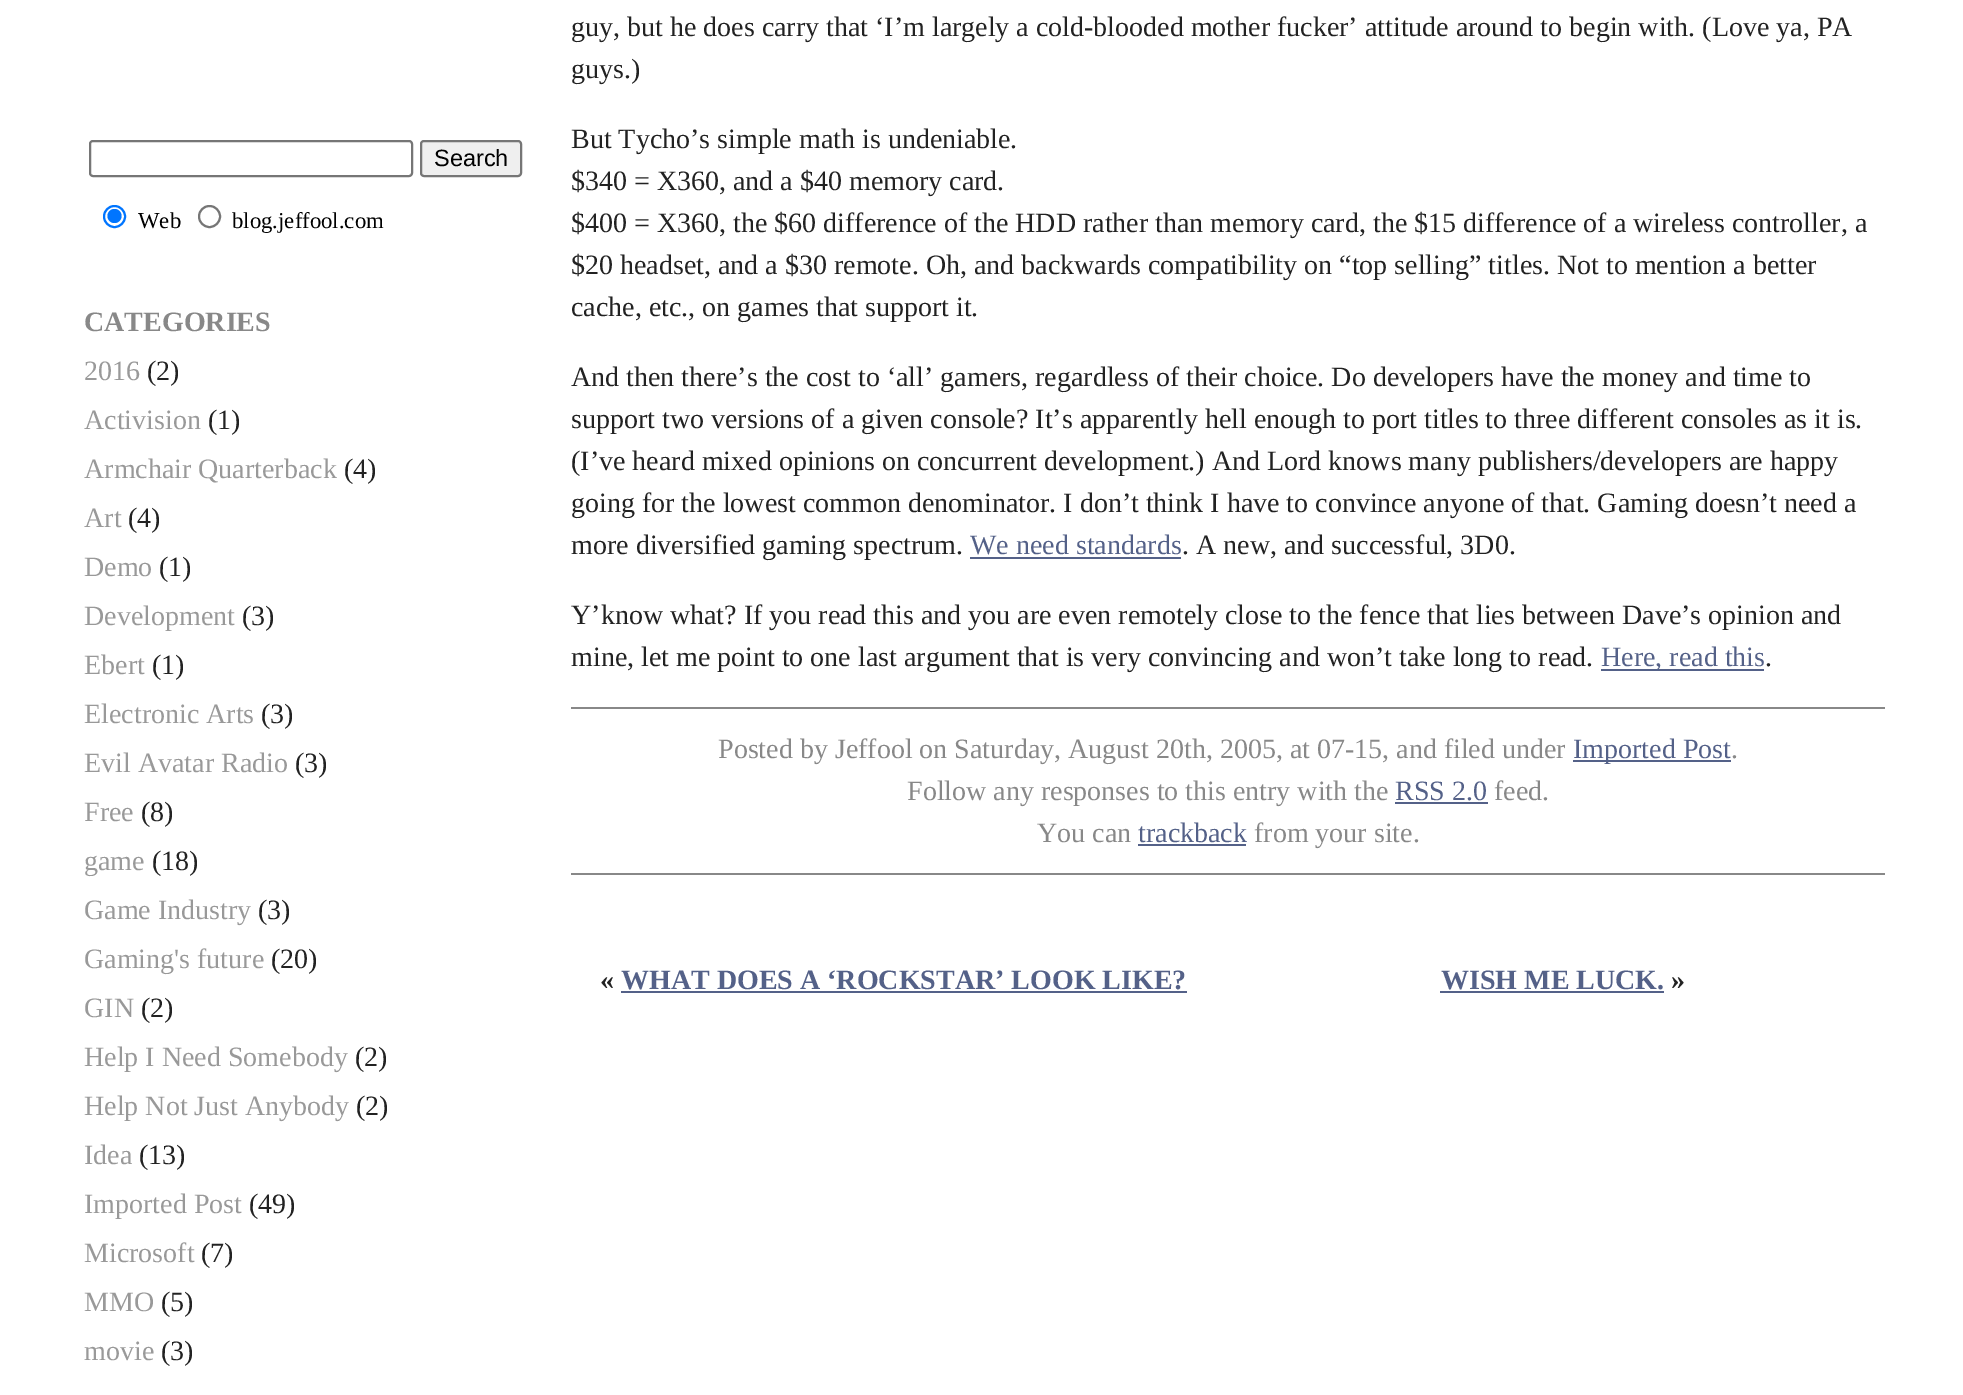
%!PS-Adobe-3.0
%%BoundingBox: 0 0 1963 1395
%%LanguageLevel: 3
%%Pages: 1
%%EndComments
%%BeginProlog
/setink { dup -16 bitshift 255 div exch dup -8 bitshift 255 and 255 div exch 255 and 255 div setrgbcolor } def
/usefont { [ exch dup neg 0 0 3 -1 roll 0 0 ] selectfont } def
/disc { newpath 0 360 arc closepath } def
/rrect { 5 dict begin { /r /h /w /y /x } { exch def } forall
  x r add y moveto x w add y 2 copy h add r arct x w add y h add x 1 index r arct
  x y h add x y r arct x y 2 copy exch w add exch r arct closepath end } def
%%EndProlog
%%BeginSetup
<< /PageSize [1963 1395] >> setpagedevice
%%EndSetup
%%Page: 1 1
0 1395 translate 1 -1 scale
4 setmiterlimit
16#FFFFFF setink
0 0 1963 1395 rectfill
16#767676 setink
2 setlinewidth
90 141 322 35 3 rrect stroke
16#EFEFEF setink
421 141 100 35 3 rrect gsave fill grestore
16#767676 setink
stroke
/LiberationSans-Regular 23.5 usefont
16#000000 setink
434 166 moveto (Search) show
16#0075FF setink
114.5 216.5 10.5 disc stroke
114.5 216 7 disc fill
/LiberationSerif-Regular 22.75 usefont
16#000000 setink
138 228 moveto (Web) show
16#767676 setink
209.5 216.5 10.5 disc stroke
16#000000 setink
232 228 moveto (blog.jeffool.com) show
/LiberationSerif-Bold 28 usefont
16#888888 setink
84 331 moveto (CATEGORIES) show
/LiberationSerif-Regular 28 usefont
16#999999 setink
84 380 moveto (2016) show
16#222222 setink
147 380 moveto (\(2\)) show
16#999999 setink
84 429 moveto (Activision) show
16#222222 setink
208 429 moveto (\(1\)) show
16#999999 setink
84 478 moveto (Armchair Quarterback) show
16#222222 setink
344 478 moveto (\(4\)) show
16#999999 setink
84 527 moveto (Art) show
16#222222 setink
128 527 moveto (\(4\)) show
16#999999 setink
84 576 moveto (Demo) show
16#222222 setink
159 576 moveto (\(1\)) show
16#999999 setink
84 625 moveto (Development) show
16#222222 setink
242 625 moveto (\(3\)) show
16#999999 setink
84 674 moveto (Ebert) show
16#222222 setink
152 674 moveto (\(1\)) show
16#999999 setink
84 723 moveto (Electronic Arts) show
16#222222 setink
261 723 moveto (\(3\)) show
16#999999 setink
84 772 moveto (Evil Avatar Radio) show
16#222222 setink
295 772 moveto (\(3\)) show
16#999999 setink
84 821 moveto (Free) show
16#222222 setink
141 821 moveto (\(8\)) show
16#999999 setink
84 870 moveto (game) show
16#222222 setink
152 870 moveto (\(18\)) show
16#999999 setink
84 919 moveto (Game Industry) show
16#222222 setink
258 919 moveto (\(3\)) show
16#999999 setink
84 968 moveto (Gaming's future) show
16#222222 setink
271 968 moveto (\(20\)) show
16#999999 setink
84 1017 moveto (GIN) show
16#222222 setink
141 1017 moveto (\(2\)) show
16#999999 setink
84 1066 moveto (Help I Need Somebody) show
16#222222 setink
355 1066 moveto (\(2\)) show
16#999999 setink
84 1115 moveto (Help Not Just Anybody) show
16#222222 setink
356 1115 moveto (\(2\)) show
16#999999 setink
84 1164 moveto (Idea) show
16#222222 setink
139 1164 moveto (\(13\)) show
16#999999 setink
84 1213 moveto (Imported Post) show
16#222222 setink
249 1213 moveto (\(49\)) show
16#999999 setink
84 1262 moveto (Microsoft) show
16#222222 setink
201 1262 moveto (\(7\)) show
16#999999 setink
84 1311 moveto (MMO) show
16#222222 setink
161 1311 moveto (\(5\)) show
16#999999 setink
84 1360 moveto (movie) show
16#222222 setink
[
    [(\(3\)) 161 1360]
    [(guy, but he does carry that ‘I’m largely a cold-blooded mother fucker’ attitude around to begin with. \(Love ya, PA) 571 36]
    [(guys.\)) 571 78]
    [(But Tycho’s simple math is undeniable.) 571 148]
    [($340 = X360, and a $40 memory card.) 571 190]
    [($400 = X360, the $60 difference of the HDD rather than memory card, the $15 difference of a wireless controller, a) 571 232]
    [($20 headset, and a $30 remote. Oh, and backwards compatibility on “top selling” titles. Not to mention a better) 571 274]
    [(cache, etc., on games that support it.) 571 316]
    [(And then there’s the cost to ‘all’ gamers, regardless of their choice. Do developers have the money and time to) 571 386]
    [(support two versions of a given console? It’s apparently hell enough to port titles to three different consoles as it is.) 571 428]
    [(\(I’ve heard mixed opinions on concurrent development.\) And Lord knows many publishers/developers are happy) 571 470]
    [(going for the lowest common denominator. I don’t think I have to convince anyone of that. Gaming doesn’t need a) 571 512]
    [(more diversified gaming spectrum.) 571 554]
] { aload pop moveto show } forall
16#546188 setink
970 554 moveto (We need standards) show
970 557 211 2 rectfill
16#222222 setink
[
    [(. A new, and successful, 3D0.) 1182 554]
    [(Y’know what? If you read this and you are even remotely close to the fence that lies between Dave’s opinion and) 571 624]
    [(mine, let me point to one last argument that is very convincing and won’t take long to read.) 571 666]
] { aload pop moveto show } forall
16#546188 setink
1601 669 163 2 rectfill
1601 666 moveto (Here, read this) show
16#222222 setink
1765 666 moveto (.) show
16#888888 setink
571 707 1314 2 rectfill
571 873 1314 2 rectfill
718 758 moveto (Posted by Jeffool on Saturday, August 20th, 2005, at 07-15, and filed under) show
16#546188 setink
1573 760 158 2 rectfill
1573 758 moveto (Imported Post) show
16#888888 setink
1731 758 moveto (.) show
907 800 moveto (Follow any responses to this entry with the) show
16#546188 setink
1395 800 moveto (RSS 2.0) show
1395 802 93 2 rectfill
16#888888 setink
1494 800 moveto (feed.) show
1037 842 moveto (You can) show
16#546188 setink
1138 842 moveto (trackback) show
1138 844 108 2 rectfill
16#888888 setink
1254 842 moveto (from your site.) show
/LiberationSerif-Bold 28 usefont
16#222222 setink
600 989 moveto («) show
16#546188 setink
621 989 moveto (WHAT DOES A ‘ROCKSTAR’ LOOK LIKE?) show
621 991 566 2 rectfill
1441 989 moveto (WISH ME LUCK.) show
1440 991 224 2 rectfill
16#222222 setink
1671 989 moveto (») show
showpage
%%EOF
